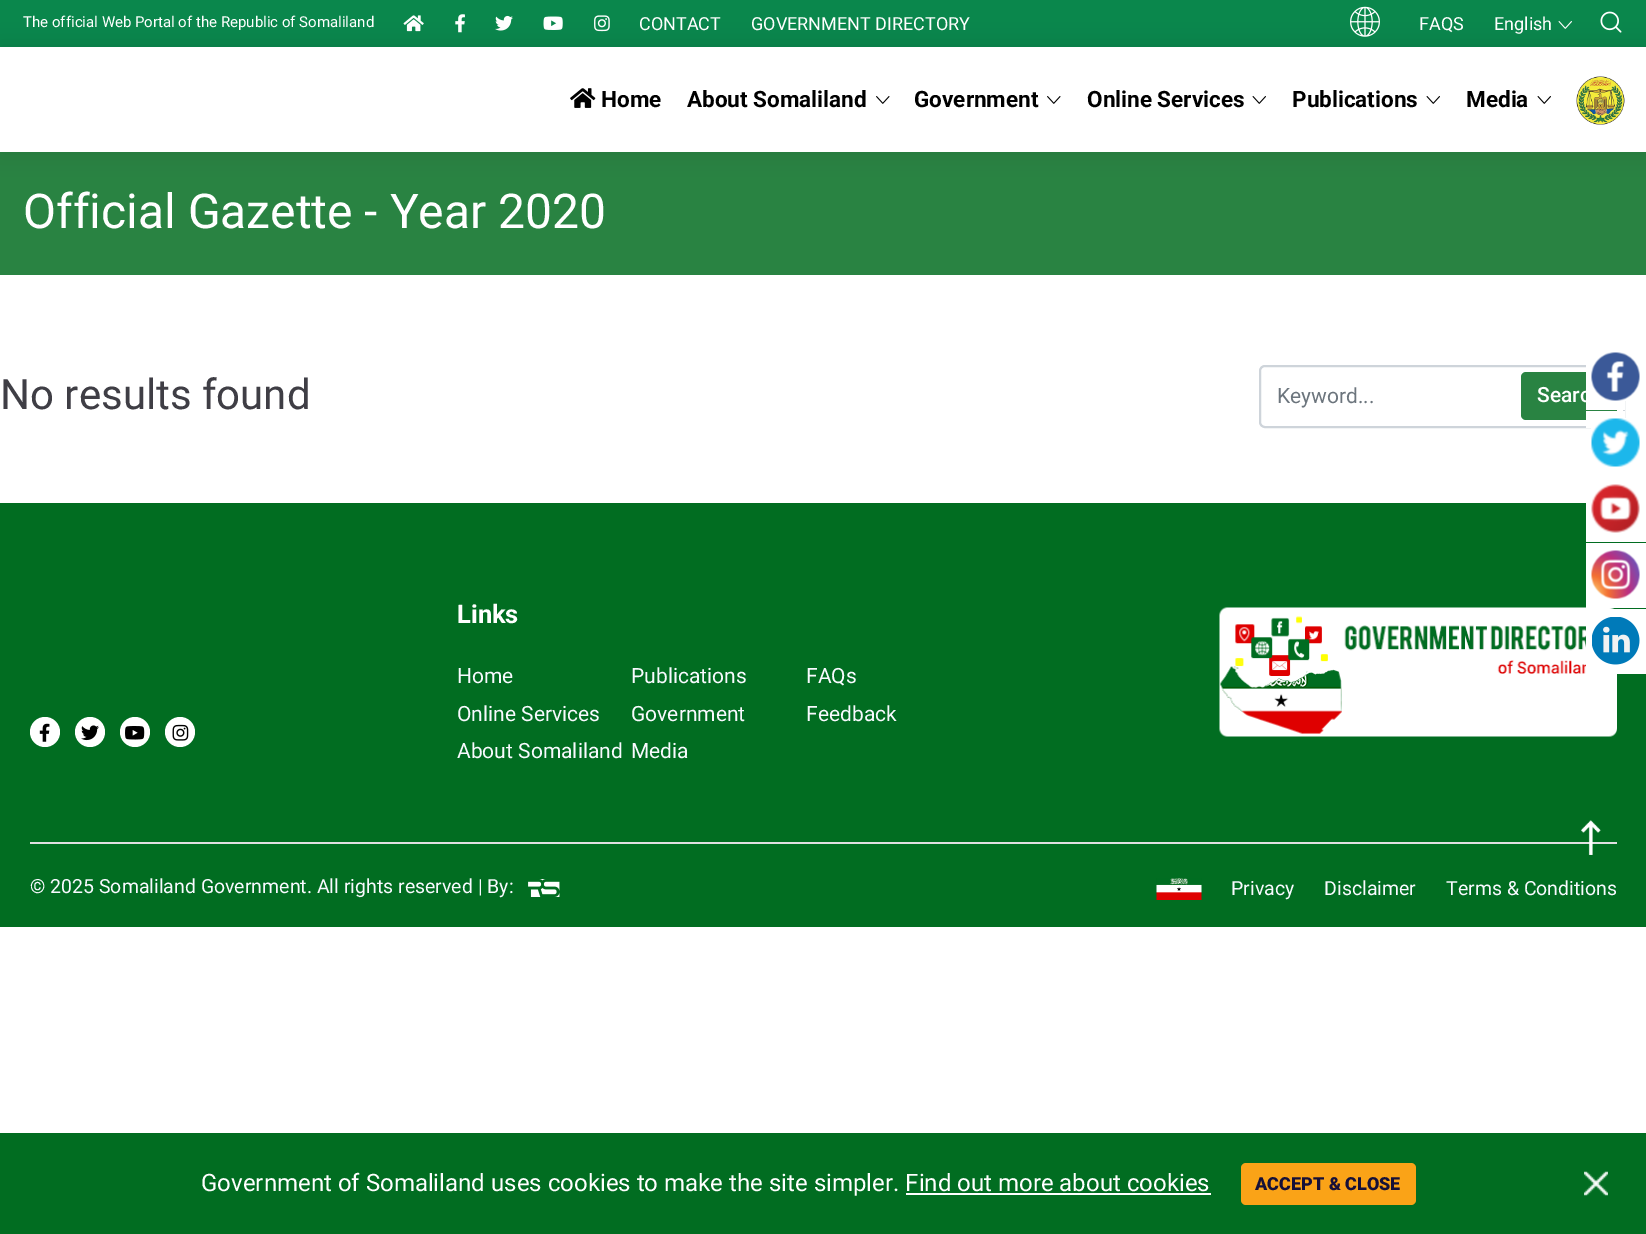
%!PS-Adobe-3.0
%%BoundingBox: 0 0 1646 1234
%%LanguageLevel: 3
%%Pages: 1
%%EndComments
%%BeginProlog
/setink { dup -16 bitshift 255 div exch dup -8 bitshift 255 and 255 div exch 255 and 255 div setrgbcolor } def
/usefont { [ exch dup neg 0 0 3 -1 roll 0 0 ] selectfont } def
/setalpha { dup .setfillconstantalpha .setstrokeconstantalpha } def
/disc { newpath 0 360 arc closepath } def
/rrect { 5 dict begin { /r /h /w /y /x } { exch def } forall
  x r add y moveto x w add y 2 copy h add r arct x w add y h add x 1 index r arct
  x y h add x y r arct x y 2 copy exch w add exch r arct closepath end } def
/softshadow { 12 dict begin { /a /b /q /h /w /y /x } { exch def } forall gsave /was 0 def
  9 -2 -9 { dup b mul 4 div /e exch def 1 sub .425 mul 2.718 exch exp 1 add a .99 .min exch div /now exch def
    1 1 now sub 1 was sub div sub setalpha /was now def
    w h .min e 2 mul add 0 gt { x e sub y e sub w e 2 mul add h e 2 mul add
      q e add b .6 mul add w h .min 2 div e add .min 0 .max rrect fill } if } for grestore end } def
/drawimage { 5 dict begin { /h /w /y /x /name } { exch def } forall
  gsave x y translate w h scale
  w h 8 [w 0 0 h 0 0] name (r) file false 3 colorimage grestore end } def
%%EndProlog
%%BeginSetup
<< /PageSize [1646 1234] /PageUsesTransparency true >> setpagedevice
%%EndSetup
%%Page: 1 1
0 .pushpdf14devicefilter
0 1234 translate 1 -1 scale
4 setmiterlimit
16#FFFFFF setink
0 0 1646 1234 rectfill
16#0A874C setink
0 0 1646 47 rectfill
/Roboto-Regular 15 usefont
16#FFFFFF setink
23 27 moveto (The official Web Portal of the Republic of Somaliland) show
(img1.raw) 403 15 21 17 drawimage
(img2.raw) 455 14 10 19 drawimage
(img3.raw) 495 15 18 16 drawimage
(img4.raw) 543 16 20 14 drawimage
(img5.raw) 594 15 16 17 drawimage
/Roboto-Regular 18 usefont
639 30 moveto (CONTACT) show
751 30 moveto (GOVERNMENT DIRECTORY) show
16#298342 setink
0 152 1646 123 rectfill
16#000000 setink
0 47 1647 105 0 11 0.1 softshadow
(img6.raw) 1350 6 30 31 drawimage
16#FFFFFF setink
1419 30 moveto (FAQS) show
1494 30 moveto (English) show
(img7.raw) 1558 21 14 8 drawimage
(img8.raw) 1600 11 22 22 drawimage
0 47 1646 105 rectfill
(img9.raw) 570 88 26 20 drawimage
/Roboto-Bold 22.5 usefont
16#000000 setink
601 107 moveto (Home) show
687 107 moveto (About Somaliland) show
(img10.raw) 876 96 14 8 drawimage
914 107 moveto (Government) show
(img10.raw) 1047 96 14 8 drawimage
1087 107 moveto (Online Services) show
(img11.raw) 1252 96 14 8 drawimage
1292 107 moveto (Publications) show
(img11.raw) 1426 96 14 8 drawimage
1466 107 moveto (Media) show
(img11.raw) 1537 96 14 8 drawimage
(img12.raw) 1576 76 49 49 drawimage
/Roboto-Regular 48 usefont
16#FFFFFF setink
23 228 moveto (Official Gazette - Year 2020) show
/Roboto-Regular 42 usefont
16#3F3E45 setink
0 409 moveto (No results found) show
16#CED4DA setink
2 setlinewidth
1260 366 364 61 5 rrect stroke
/Roboto-Regular 21 usefont
16#6C757D setink
1277 403 moveto (Keyword...) show
16#298342 setink
1521 372 96 48 5 rrect fill
/Roboto-Medium 21 usefont
16#FFFFFF setink
1537 402 moveto (Searc) show
16#016D21 setink
0 503 1646 424 rectfill
16#E0E0E1 setink
30 842 1587 2 rectfill
16#FFFFFF setink
45 732 15 disc fill
(img13.raw) 39 723 11 19 drawimage
90 732 15 disc fill
(img14.raw) 81 725 18 16 drawimage
135 732 15 disc fill
(img15.raw) 125 726 20 14 drawimage
180 732 15 disc fill
(img16.raw) 172 724 17 17 drawimage
/Roboto-Bold 25.5 usefont
457 623 moveto (Links) show
/Roboto-Regular 21 usefont
16#F9FAFF setink
[
    [(Home) 457 683]
    [(Online Services) 457 721]
    [(About Somaliland) 457 758]
    [(Publications) 631 683]
    [(Government) 631 721]
    [(Media) 631 758]
    [(FAQs) 806 683]
    [(Feedback) 806 721]
] { aload pop moveto show } forall
(img17.raw) 1219 607 398 130 drawimage
/Roboto-Regular 19.5 usefont
30 893 moveto (© 2025 Somaliland Government. All rights reserved | By:) show
(img18.raw) 528 879 32 18 drawimage
(img19.raw) 1156 878 46 22 drawimage
[
    [(Privacy) 1231 895]
    [(Disclaimer) 1324 895]
    [(Terms & Conditions) 1446 895]
] { aload pop moveto show } forall
16#FFFFFF setink
1586 365 39 45 rectfill
(img20.raw) 1591 352 49 49 drawimage
1586 411 39 17 rectfill
(img21.raw) 1591 418 49 49 drawimage
1586 503 60 39 rectfill
(img22.raw) 1591 484 49 49 drawimage
1586 543 60 65 rectfill
(img23.raw) 1591 550 49 49 drawimage
1586 609 60 65 rectfill
(img24.raw) 1592 617 48 48 drawimage
(img25.raw) 1581 820 20 35 drawimage
16#016D21 setink
0 1133 1646 101 rectfill
/Roboto-Regular 24 usefont
16#FFFFFF setink
201 1191 moveto (Government of Somaliland uses cookies to make the site simpler. Find out more about cookies) show
906 1193 305 2 rectfill
16#FAA317 setink
1241 1163 175 42 5 rrect fill
/Roboto-Black 18 usefont
16#161038 setink
1255 1190 moveto (ACCEPT & CLOSE) show
(img26.raw) 1584 1171 24 25 drawimage
.poppdf14devicefilter showpage
%%EOF
